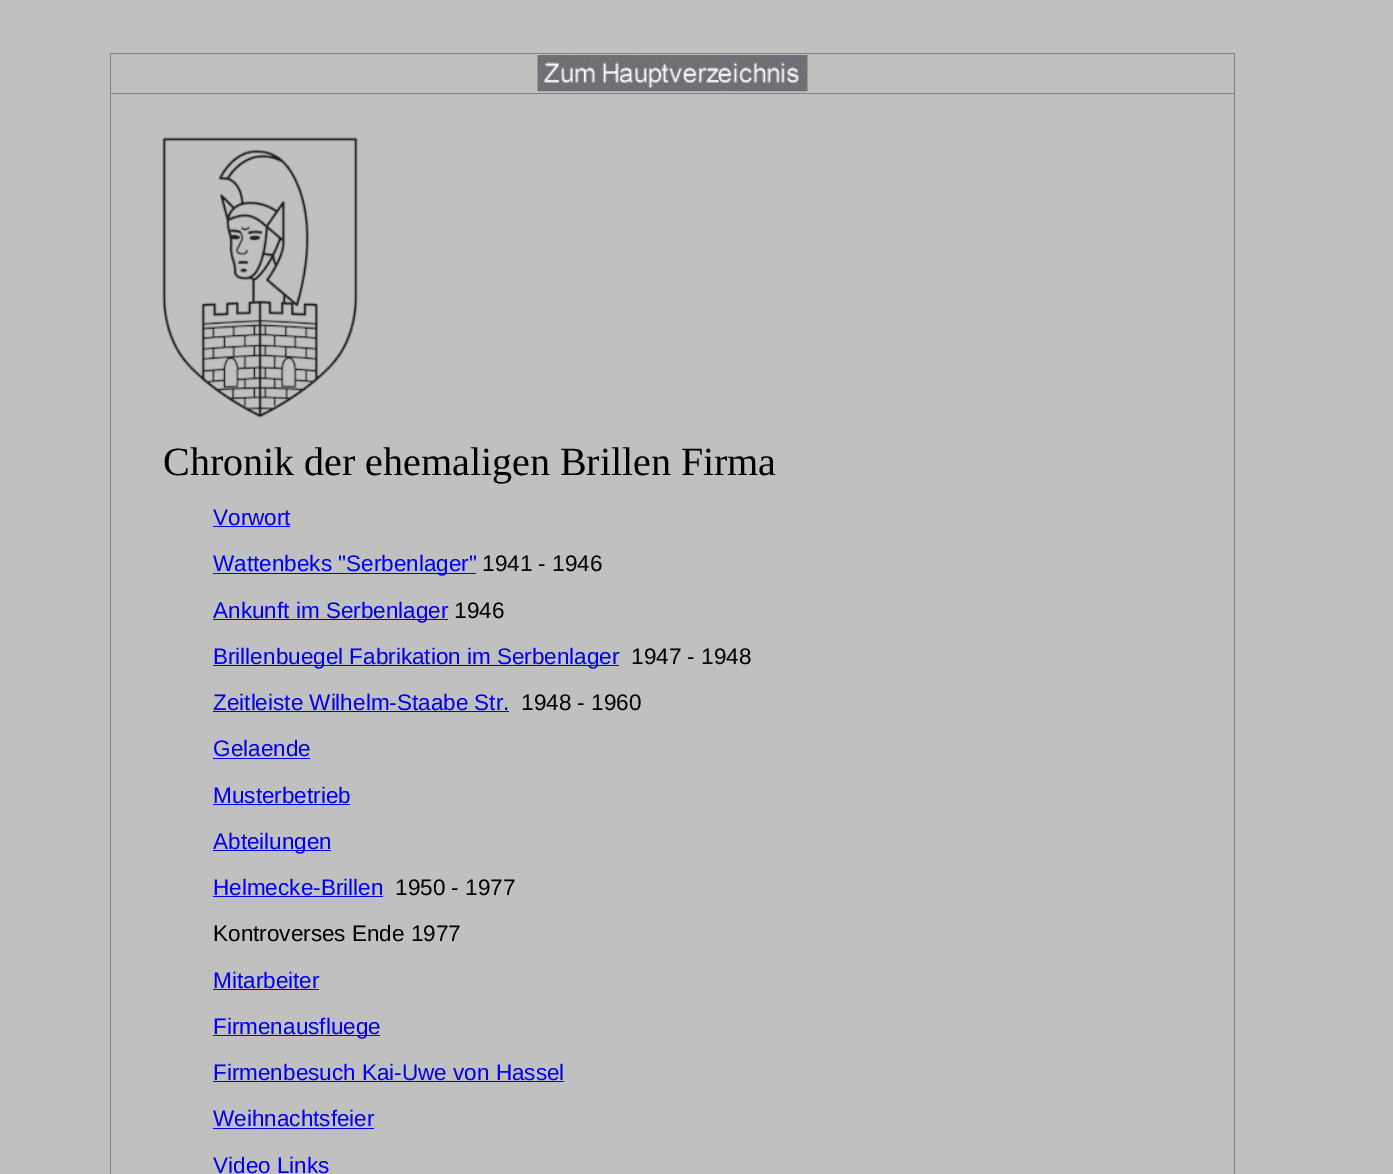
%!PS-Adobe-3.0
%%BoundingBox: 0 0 1393 1174
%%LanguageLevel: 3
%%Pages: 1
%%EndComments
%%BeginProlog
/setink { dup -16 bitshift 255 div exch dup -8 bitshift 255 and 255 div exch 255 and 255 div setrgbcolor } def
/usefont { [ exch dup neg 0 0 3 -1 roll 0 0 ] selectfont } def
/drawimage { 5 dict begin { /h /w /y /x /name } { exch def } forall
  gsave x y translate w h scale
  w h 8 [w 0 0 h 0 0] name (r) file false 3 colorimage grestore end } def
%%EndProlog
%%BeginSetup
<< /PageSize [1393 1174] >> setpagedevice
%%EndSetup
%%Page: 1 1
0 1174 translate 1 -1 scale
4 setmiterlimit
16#C0C0C0 setink
0 0 1393 1174 rectfill
[
    [110 53 1125 1 16#808080]
    [1234 53 1 1121 16#808080]
    [110 53 1 1121 16#808080]
] { aload pop setink rectfill } forall
(img1.raw) 537 55 271 37 drawimage
110 93 1125 1 rectfill
(img2.raw) 162 137 196 281 drawimage
/LiberationSerif-Regular 40 usefont
16#000000 setink
163 475 moveto (Chronik der ehemaligen Brillen Firma) show
/LiberationSans-Regular 22.5 usefont
16#0000EE setink
213 525 moveto (Vorwort) show
213 526 77 1 rectfill
213 573 263 1 rectfill
213 571 moveto (Wattenbeks "Serbenlager") show
16#000000 setink
482 571 moveto (1941 - 1946) show
16#0000EE setink
213 619 235 1 rectfill
213 618 moveto (Ankunft im Serbenlager) show
16#000000 setink
454 618 moveto (1946) show
16#0000EE setink
213 665 406 1 rectfill
213 664 moveto (Brillenbuegel Fabrikation im Serbenlager) show
16#000000 setink
631 664 moveto (1947 - 1948) show
16#0000EE setink
213 710 moveto (Zeitleiste Wilhelm-Staabe Str.) show
213 711 296 1 rectfill
16#000000 setink
521 710 moveto (1948 - 1960) show
16#0000EE setink
213 756 moveto (Gelaende) show
213 758 97 1 rectfill
213 803 moveto (Musterbetrieb) show
213 804 137 1 rectfill
213 850 118 1 rectfill
213 849 moveto (Abteilungen) show
213 895 moveto (Helmecke-Brillen) show
213 896 170 1 rectfill
16#000000 setink
395 895 moveto (1950 - 1977) show
213 941 moveto (Kontroverses Ende 1977) show
16#0000EE setink
213 988 moveto (Mitarbeiter) show
213 989 106 1 rectfill
213 1035 167 1 rectfill
213 1034 moveto (Firmenausfluege) show
213 1080 moveto (Firmenbesuch Kai-Uwe von Hassel) show
213 1081 351 1 rectfill
213 1126 moveto (Weihnachtsfeier) show
213 1128 161 1 rectfill
213 1173 moveto (Video Links) show
showpage
%%EOF
